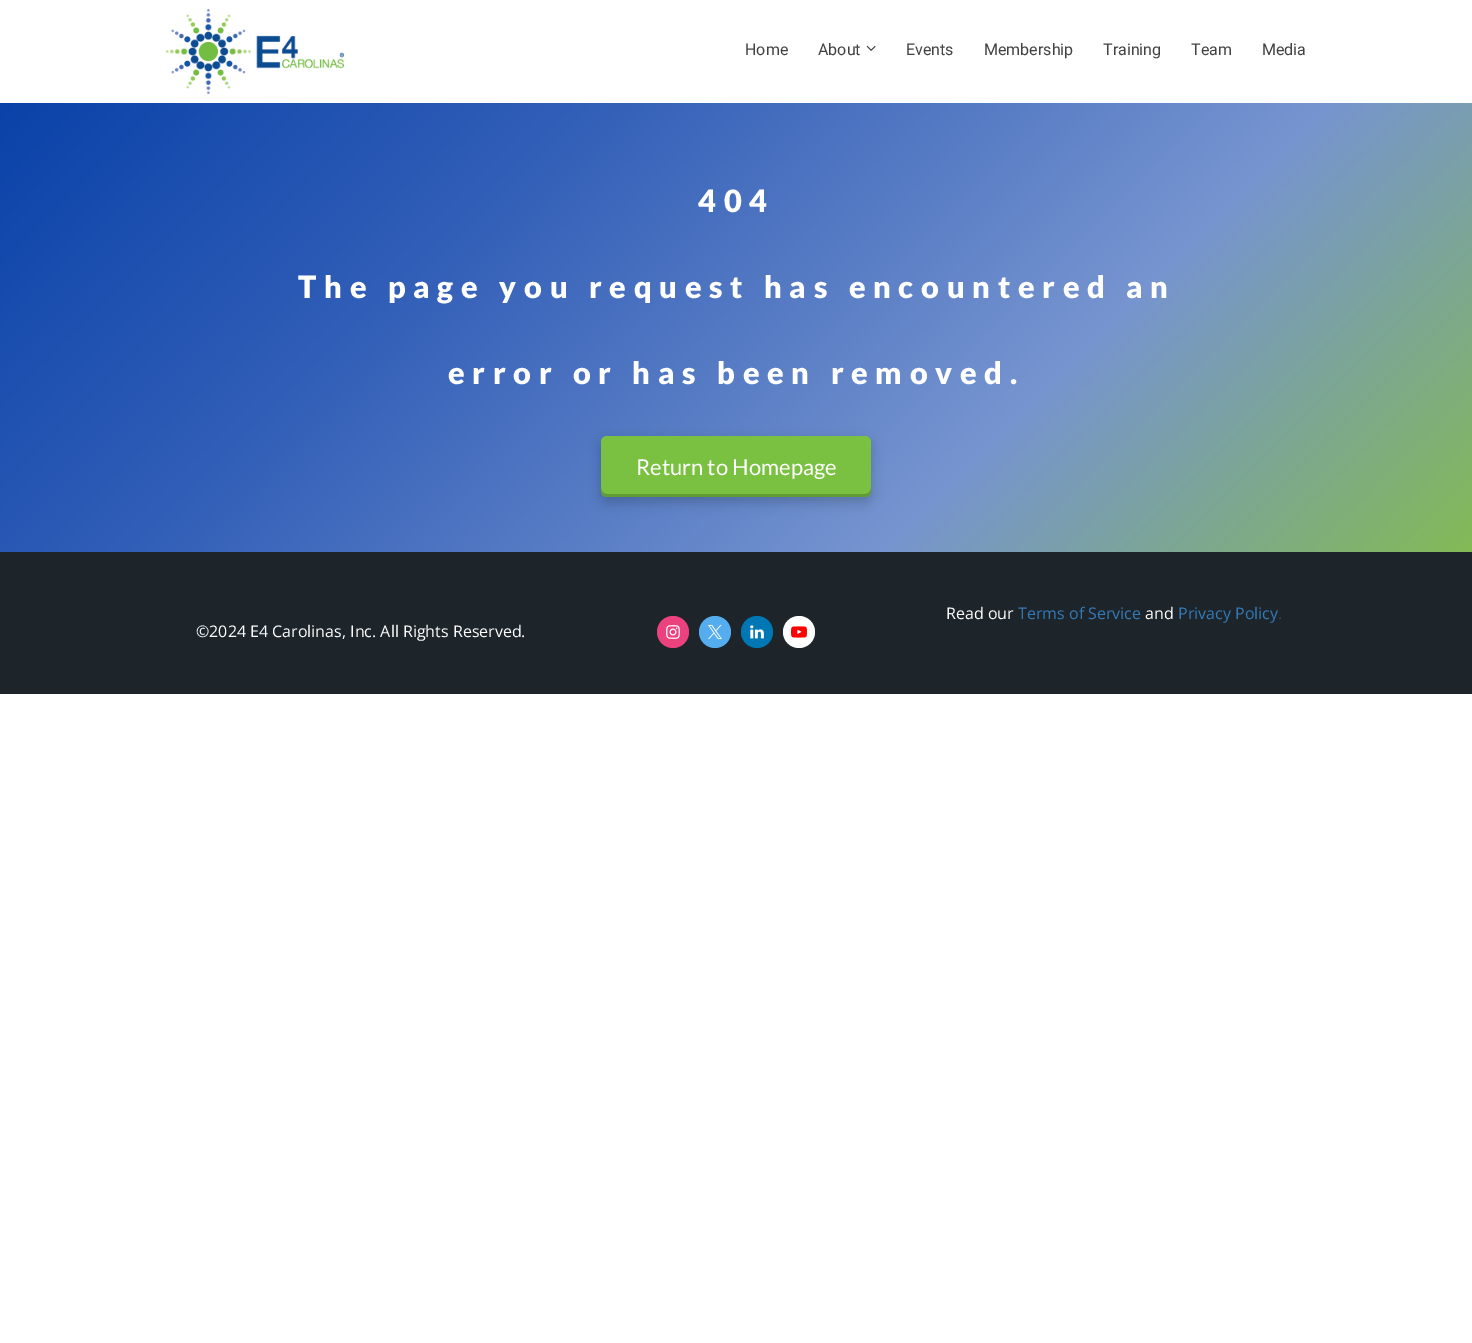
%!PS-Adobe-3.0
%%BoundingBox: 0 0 1472 1343
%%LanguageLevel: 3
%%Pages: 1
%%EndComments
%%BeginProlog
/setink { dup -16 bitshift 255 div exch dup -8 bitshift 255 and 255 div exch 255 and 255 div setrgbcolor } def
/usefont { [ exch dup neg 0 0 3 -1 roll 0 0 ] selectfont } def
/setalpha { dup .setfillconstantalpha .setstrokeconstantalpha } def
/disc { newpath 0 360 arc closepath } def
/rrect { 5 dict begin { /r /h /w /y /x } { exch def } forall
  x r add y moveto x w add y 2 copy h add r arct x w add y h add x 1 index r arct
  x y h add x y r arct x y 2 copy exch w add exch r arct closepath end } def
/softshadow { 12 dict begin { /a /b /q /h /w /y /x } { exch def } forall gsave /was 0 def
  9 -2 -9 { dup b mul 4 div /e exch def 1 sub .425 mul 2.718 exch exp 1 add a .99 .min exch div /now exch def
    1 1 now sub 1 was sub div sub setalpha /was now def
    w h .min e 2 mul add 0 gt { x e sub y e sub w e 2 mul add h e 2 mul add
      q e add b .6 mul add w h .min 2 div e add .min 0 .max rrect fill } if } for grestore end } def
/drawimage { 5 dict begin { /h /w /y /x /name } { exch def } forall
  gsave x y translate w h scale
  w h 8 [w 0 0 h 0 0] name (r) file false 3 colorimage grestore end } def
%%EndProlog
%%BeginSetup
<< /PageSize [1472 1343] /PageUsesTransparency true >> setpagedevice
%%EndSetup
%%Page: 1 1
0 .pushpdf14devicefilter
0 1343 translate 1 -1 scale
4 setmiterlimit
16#FFFFFF setink
0 0 1472 1343 rectfill
(img1.raw) 166 9 178 85 drawimage
/Roboto-Regular 16 usefont
16#424242 setink
745 55 moveto (Home) show
818 55 moveto (About) show
(img2.raw) 866 45 10 6 drawimage
[
    [(Events) 906 55]
    [(Membership) 984 55]
    [(Training) 1103 55]
    [(Team) 1191 55]
    [(Media) 1262 55]
] { aload pop moveto show } forall
(img3.raw) 0 103 1472 449 drawimage
/Lato-Black 30.75 usefont
16#FFFFFF setink
698 212 moveto 7.7 0 (404) ashow
298 298 moveto 7.7 0 (The page you request has encountered an) ashow
448 384 moveto 7.7 0 (error or has been removed.) ashow
16#000000 setink
601 441 270 61 6 6 0.2 softshadow
16#7AC142 setink
601 436 270 61 6 rrect fill
0.2 setalpha
16#000000 setink
601 488 moveto 601 491 lineto 601 494 604 497 607 497 curveto 865 497 lineto 868 497 871 494 871 491 curveto 871 488 lineto 871 491 868 494 865 494 curveto 607 494 lineto 604 494 601 491 601 488 curveto closepath fill
/Lato-Regular 22 usefont
1 setalpha
16#FFFFFF setink
636 475 moveto (Return to Homepage) show
16#1D252B setink
0 552 1472 142 rectfill
/OpenSans-Regular 16 usefont
16#FFFFFF setink
196 637 moveto (©2024 E4 Carolinas, Inc. All Rights Reserved.) show
16#EB427D setink
673 632 16 disc fill
(img4.raw) 666 625 14 14 drawimage
16#55ACEE setink
715 632 16 disc fill
(img5.raw) 708 624 14 16 drawimage
16#0077B5 setink
757 632 16 disc fill
(img6.raw) 750 625 14 14 drawimage
16#FFFFFF setink
799 632 16 disc fill
(img7.raw) 791 626 16 12 drawimage
946 619 moveto (Read our) show
16#337AB7 setink
1018 619 moveto (Terms of Service) show
16#FFFFFF setink
1145 619 moveto (and) show
16#337AB7 setink
1178 619 moveto (Privacy Policy) show
16#424242 setink
1278 619 moveto (.) show
.poppdf14devicefilter showpage
%%EOF
